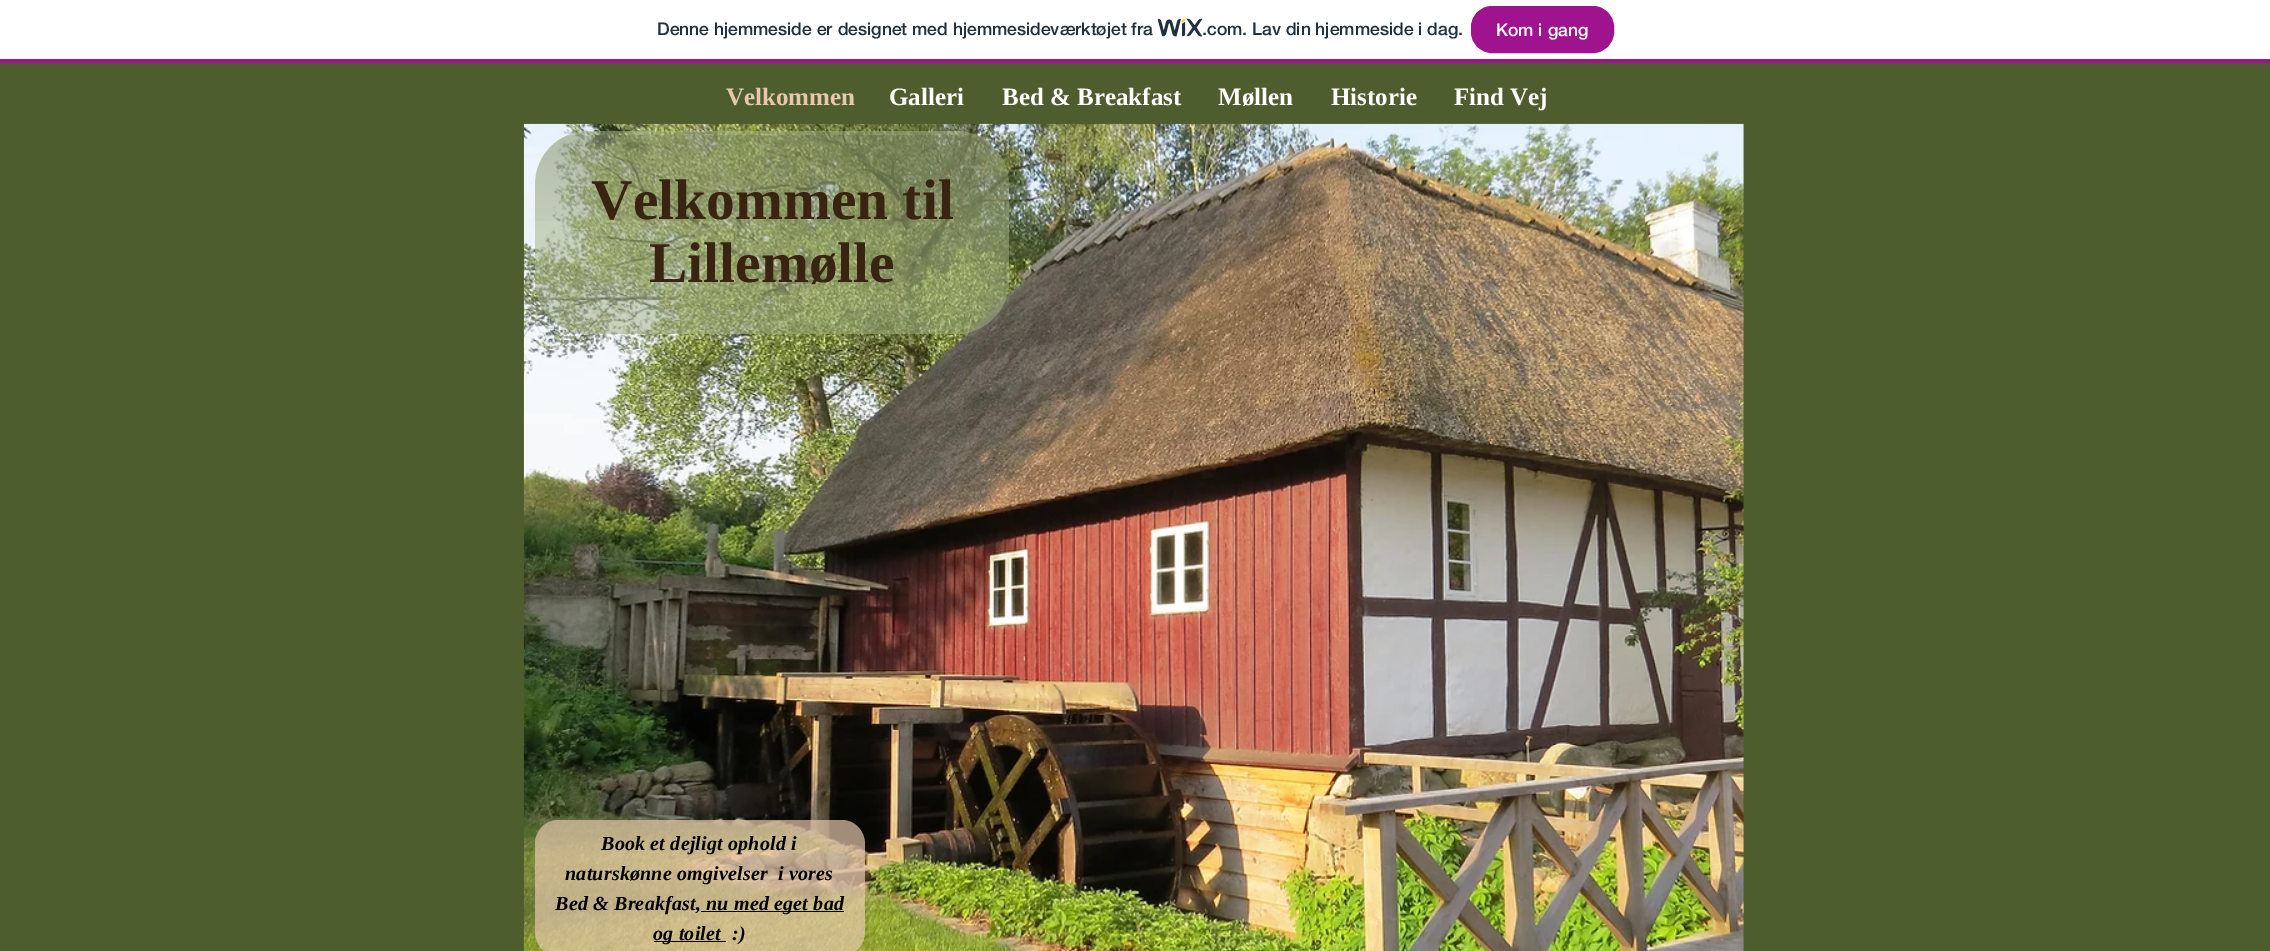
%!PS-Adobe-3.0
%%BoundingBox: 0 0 2270 951
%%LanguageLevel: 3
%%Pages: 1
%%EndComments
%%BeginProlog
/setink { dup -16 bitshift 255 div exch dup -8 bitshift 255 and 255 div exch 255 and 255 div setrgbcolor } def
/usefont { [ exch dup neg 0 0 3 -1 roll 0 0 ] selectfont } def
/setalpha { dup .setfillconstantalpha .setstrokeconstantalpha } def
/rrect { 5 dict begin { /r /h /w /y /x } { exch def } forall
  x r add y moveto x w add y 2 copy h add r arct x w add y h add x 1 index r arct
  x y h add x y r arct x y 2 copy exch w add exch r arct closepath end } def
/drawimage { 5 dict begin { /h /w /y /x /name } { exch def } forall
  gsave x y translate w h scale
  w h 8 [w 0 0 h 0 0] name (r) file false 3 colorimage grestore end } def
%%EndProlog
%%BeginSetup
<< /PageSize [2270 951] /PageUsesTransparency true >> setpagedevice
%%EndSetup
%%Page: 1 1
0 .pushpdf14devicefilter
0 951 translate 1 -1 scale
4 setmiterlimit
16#FFFFFF setink
0 0 2270 951 rectfill
16#A0138E setink
0 59 2270 4 rectfill
/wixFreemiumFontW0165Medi-Medium 17.5 usefont
16#20303C setink
657 35 moveto (Denne hjemmeside er designet med hjemmesideværktøjet fra) show
(img1.raw) 1158 18 45 19 drawimage
1202 35 moveto (.com. Lav din hjemmeside i dag.) show
16#A0138E setink
1471.5 6.5 142 46 20.5 rrect gsave fill grestore
stroke
16#FFFFFF setink
1496 36 moveto (Kom i gang) show
16#4E5D2E setink
0 63 2270 888 rectfill
/LiberationSerif-Bold 25 usefont
16#E7C8AD setink
726 105 moveto (Velkommen) show
16#FFFFFF setink
[
    [(Galleri) 889 105]
    [(Bed & Breakfast) 1002 105]
    [(Møllen) 1218 105]
    [(Historie) 1331 105]
    [(Find Vej) 1454 105]
] { aload pop moveto show } forall
(img2.raw) 523 123 1221 828 drawimage
0.53 setalpha
16#A4B285 setink
535 131 474 203 53 rrect fill
1 setalpha
(img3.raw) 535 135 474 86 drawimage
/LiberationSerif-Bold 57.5 usefont
16#392411 setink
591 219 moveto (Velkommen til) show
649 282 moveto (Lillemølle) show
0.69 setalpha
16#E7C8AD setink
558 820 moveto 842 820 lineto 855 820 865 831 865 844 curveto 865 931 lineto 865 945 855 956 842 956 curveto 594 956 lineto 556 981 lineto 561 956 lineto 558 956 lineto 545 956 535 945 535 931 curveto 535 844 lineto 535 831 545 820 558 820 curveto closepath fill
/LiberationSerif-BoldItalic 20 usefont
1 setalpha
16#000000 setink
601 850 moveto 0.2 0 (Book et dejligt ophold i) ashow
565 880 moveto 0.2 0 (naturskønne omgivelser  i vores) ashow
555 910 moveto 0.2 0 (Bed & Breakfast,) ashow
701 911 143 1 rectfill
706 910 moveto 0.2 0 (nu med eget bad) ashow
654 941 72 1 rectfill
653 940 moveto 0.2 0 (og toilet) ashow
732 940 moveto 0.2 0 (:\)) ashow
.poppdf14devicefilter showpage
%%EOF
